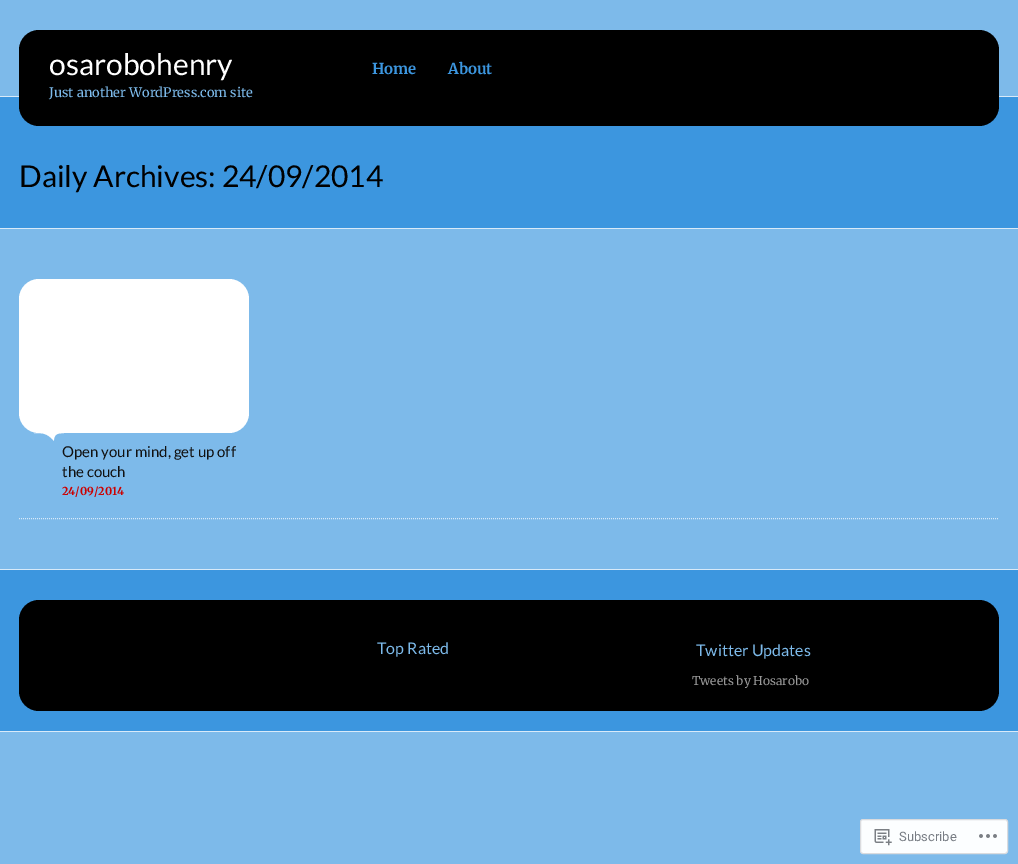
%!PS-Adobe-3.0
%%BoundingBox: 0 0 1018 864
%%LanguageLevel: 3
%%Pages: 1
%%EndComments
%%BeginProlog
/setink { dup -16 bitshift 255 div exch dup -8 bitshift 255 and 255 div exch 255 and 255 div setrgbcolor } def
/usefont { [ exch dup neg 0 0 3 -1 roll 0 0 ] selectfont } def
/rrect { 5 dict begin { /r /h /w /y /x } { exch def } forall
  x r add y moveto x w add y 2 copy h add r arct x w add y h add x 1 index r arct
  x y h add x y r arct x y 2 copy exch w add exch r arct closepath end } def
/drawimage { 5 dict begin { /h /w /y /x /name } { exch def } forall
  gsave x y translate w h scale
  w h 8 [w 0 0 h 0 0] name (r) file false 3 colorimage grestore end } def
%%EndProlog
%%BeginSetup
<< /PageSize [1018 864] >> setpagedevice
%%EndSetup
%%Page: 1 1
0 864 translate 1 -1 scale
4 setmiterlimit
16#7DBAEA setink
0 0 1018 864 rectfill
16#3C96DF setink
0 97 1018 131 rectfill
16#D8EAF9 setink
0 96 1018 1 rectfill
16#000000 setink
19 30 980 96 20 rrect fill
/Lato-Regular 30 usefont
16#FFFFFF setink
49 75 moveto (osarobohenry) show
/Merriweather-Regular 13 usefont
16#7DBAEA setink
49 97 moveto (Just another WordPress.com site) show
/Merriweather-Bold 15 usefont
16#3C96DF setink
372 74 moveto (Home) show
448 74 moveto (About) show
16#D8EAF9 setink
0 228 1018 1 rectfill
/Lato-Regular 30 usefont
16#000000 setink
19 187 moveto (Daily Archives: 24/09/2014) show
16#D8EAF9 setink
[1 1] 0 setdash
19 518.5 moveto 999 518.5 lineto stroke
16#FFFFFF setink
19 279 230 154 20 rrect fill
(img1.raw) 34 433 30 8 drawimage
/Lato-Regular 15 usefont
16#111111 setink
62 457 moveto (Open your mind, get up off) show
62 477 moveto (the couch) show
/Merriweather-Bold 11 usefont
16#CC0000 setink
62 495 moveto (24/09/2014) show
[
    [0 570 1018 161 16#3C96DF]
    [0 569 1018 1 16#D8EAF9]
    [0 731 1018 1 16#D8EAF9]
] { aload pop setink rectfill } forall
16#000000 setink
19 600 980 111 20 rrect fill
/Lato-Regular 16 usefont
16#7DBAEA setink
377 654 moveto (Top Rated) show
696 656 moveto (Twitter Updates) show
/Merriweather-Regular 12 usefont
16#999999 setink
692 685 moveto (Tweets by Hosarobo) show
16#FCFEFF setink
860.5 819.5 147 34 2.5 rrect gsave fill grestore
16#DADBDE setink
[] 0 setdash
stroke
(img2.raw) 874 829 18 17 drawimage
/Roboto-Regular 13 usefont
16#787D84 setink
899 841 moveto (Subscribe) show
(img3.raw) 979 834 18 4 drawimage
showpage
%%EOF
